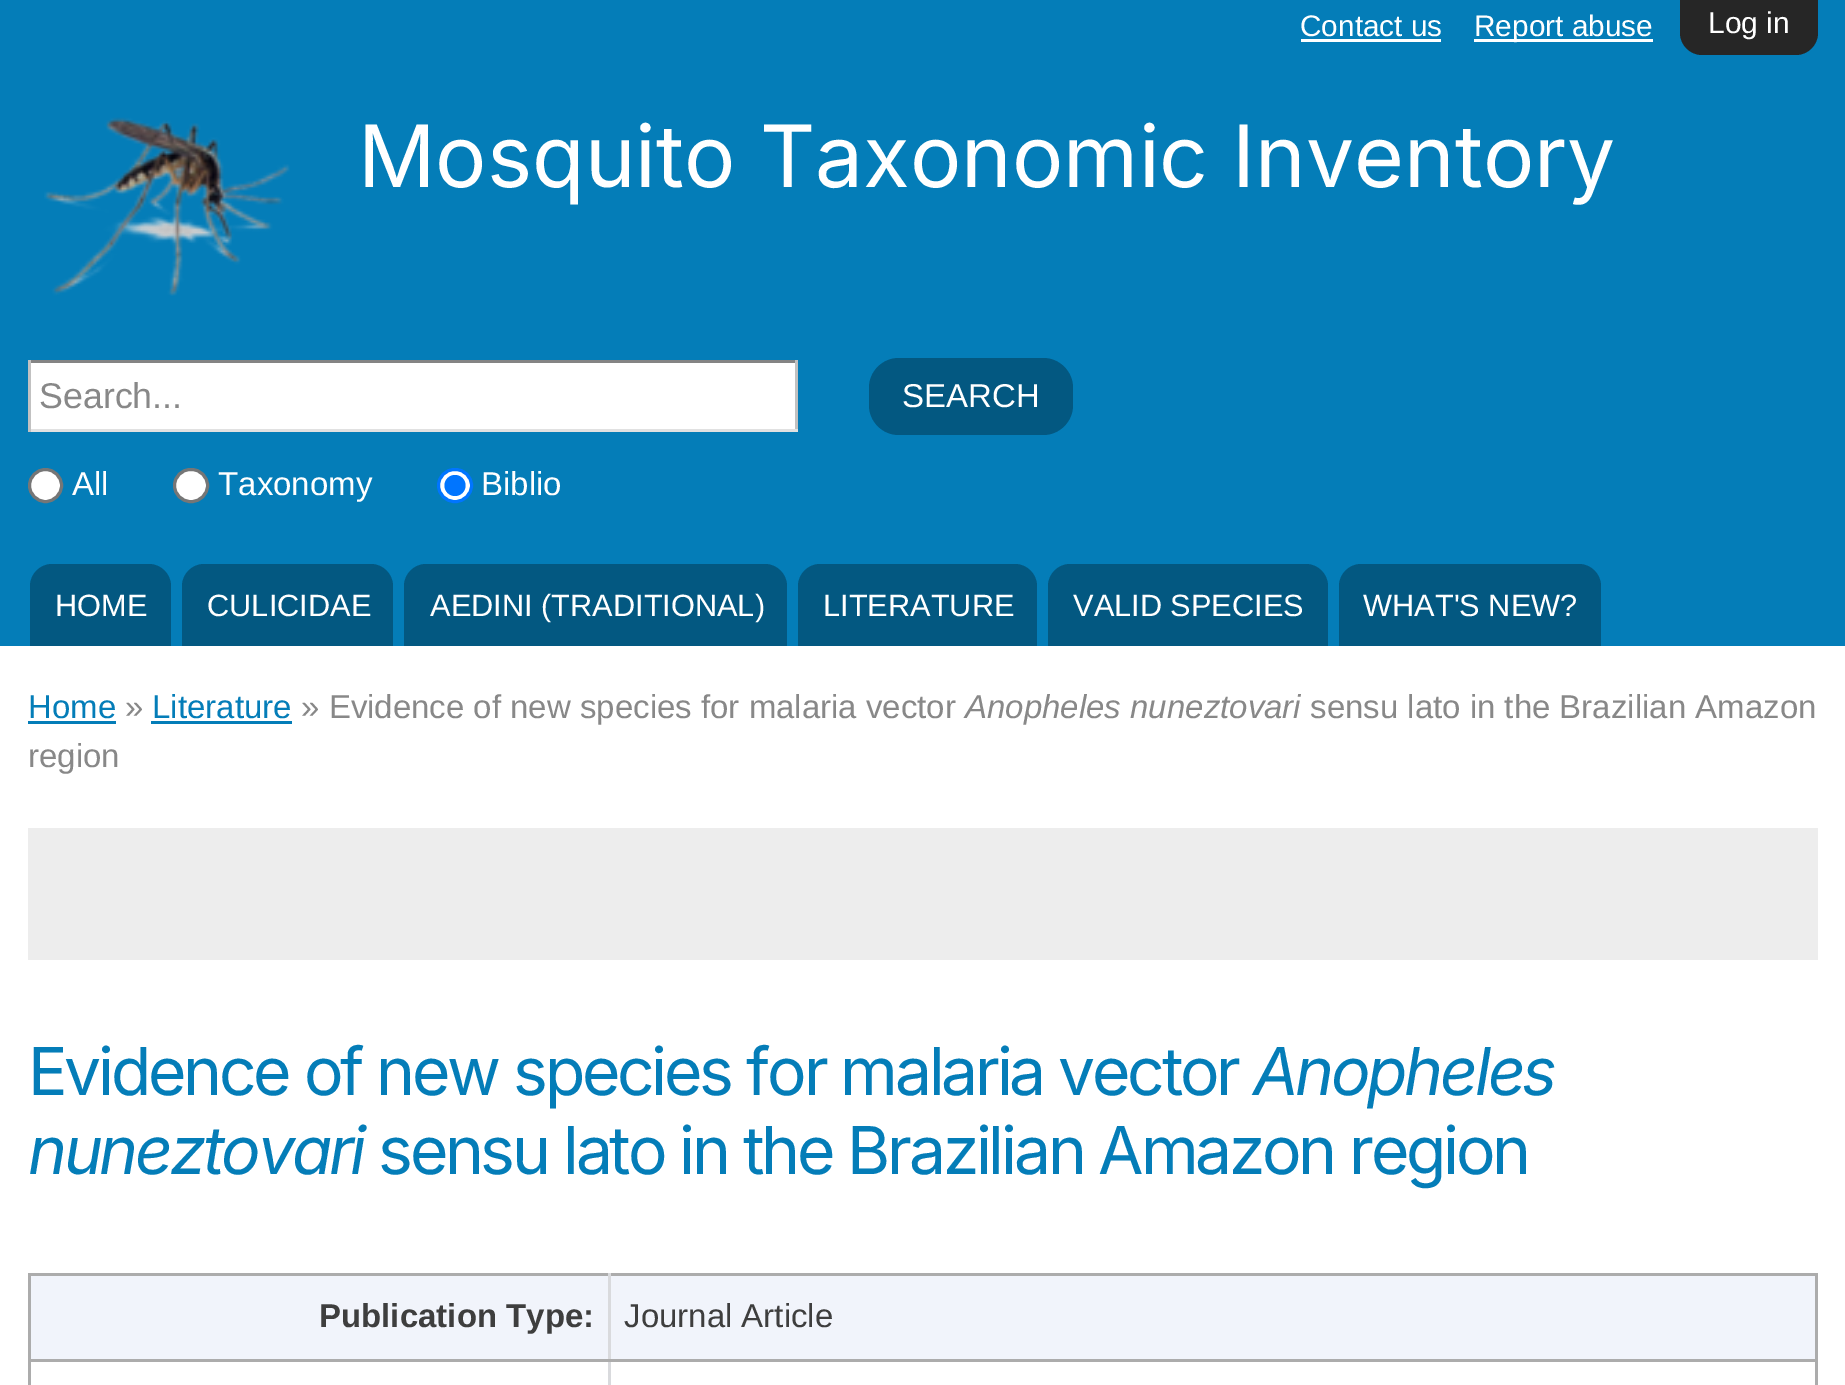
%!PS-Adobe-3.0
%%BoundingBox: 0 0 1845 1385
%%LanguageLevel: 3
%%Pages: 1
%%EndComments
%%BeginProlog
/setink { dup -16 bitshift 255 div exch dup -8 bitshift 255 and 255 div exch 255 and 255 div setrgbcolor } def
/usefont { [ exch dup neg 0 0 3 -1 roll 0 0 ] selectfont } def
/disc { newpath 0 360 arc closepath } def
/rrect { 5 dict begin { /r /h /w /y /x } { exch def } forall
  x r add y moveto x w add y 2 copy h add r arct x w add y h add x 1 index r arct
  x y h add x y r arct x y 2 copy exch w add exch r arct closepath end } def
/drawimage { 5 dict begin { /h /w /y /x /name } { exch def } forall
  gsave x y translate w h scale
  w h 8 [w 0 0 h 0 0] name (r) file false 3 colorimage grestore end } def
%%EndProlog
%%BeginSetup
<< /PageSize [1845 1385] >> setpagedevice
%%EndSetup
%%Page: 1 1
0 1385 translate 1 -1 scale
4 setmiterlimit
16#FFFFFF setink
0 0 1845 1385 rectfill
16#047DB8 setink
0 0 1845 646 rectfill
/LiberationSans-Regular 29.75 usefont
16#FFFFFF setink
1300 36 moveto (Contact us) show
1301 39 140 3 rectfill
1474 39 179 3 rectfill
1474 36 moveto (Report abuse) show
(img1.raw) 44 117 246 179 drawimage
/Inter-Regular 85.75 usefont
358 187 moveto (Mosquito Taxonomic Inventory) show
[
    [31 363 764 66 16#FFFFFF]
    [28 360 770 3 16#848484]
    [795 360 3 72 16#C1C1C1]
    [28 429 770 3 16#E1E1E1]
    [28 360 3 72 16#C1C1C1]
] { aload pop setink rectfill } forall
/LiberationSans-Regular 35.75 usefont
16#888888 setink
39 408 moveto (Search...) show
16#035881 setink
869 358 204 77 30 rrect fill
/LiberationSans-Regular 33 usefont
16#FFFFFF setink
902 407 moveto (SEARCH) show
45.5 485.5 16 disc gsave fill grestore
16#767676 setink
3 setlinewidth
stroke
16#FFFFFF setink
72 495 moveto (All) show
174.5 469.5 33 32 16 rrect gsave fill grestore
16#767676 setink
stroke
16#FFFFFF setink
218 495 moveto (Taxonomy) show
438.5 469.5 33 32 16 rrect gsave fill grestore
16#0075FF setink
stroke
455 485.5 10.5 disc fill
16#FFFFFF setink
481 495 moveto (Biblio) show
16#035881 setink
52 564 moveto 149 564 lineto 161 564 171 574 171 586 curveto 171 646 lineto 30 646 lineto 30 586 lineto 30 574 40 564 52 564 curveto closepath fill
/LiberationSans-Regular 30.75 usefont
16#FFFFFF setink
55 616 moveto (HOME) show
16#035881 setink
204 564 moveto 371 564 lineto 383 564 393 574 393 586 curveto 393 646 lineto 182 646 lineto 182 586 lineto 182 574 192 564 204 564 curveto closepath fill
16#FFFFFF setink
207 616 moveto (CULICIDAE) show
16#035881 setink
426 564 moveto 765 564 lineto 777 564 787 574 787 586 curveto 787 646 lineto 404 646 lineto 404 586 lineto 404 574 414 564 426 564 curveto closepath fill
16#FFFFFF setink
430 616 moveto (AEDINI \(TRADITIONAL\)) show
16#035881 setink
820 564 moveto 1015 564 lineto 1027 564 1037 574 1037 586 curveto 1037 646 lineto 798 646 lineto 798 586 lineto 798 574 808 564 820 564 curveto closepath fill
16#FFFFFF setink
823 616 moveto (LITERATURE) show
16#035881 setink
1070 564 moveto 1306 564 lineto 1318 564 1328 574 1328 586 curveto 1328 646 lineto 1048 646 lineto 1048 586 lineto 1048 574 1058 564 1070 564 curveto closepath fill
16#FFFFFF setink
1073 616 moveto (VALID SPECIES) show
16#035881 setink
1361 564 moveto 1579 564 lineto 1591 564 1601 574 1601 586 curveto 1601 646 lineto 1339 646 lineto 1339 586 lineto 1339 574 1349 564 1361 564 curveto closepath fill
16#FFFFFF setink
1363 616 moveto (WHAT'S NEW?) show
16#262626 setink
1680 0 moveto 1818 0 lineto 1818 33 lineto 1818 45 1808 55 1796 55 curveto 1702 55 lineto 1690 55 1680 45 1680 33 curveto closepath fill
/LiberationSans-Regular 30 usefont
16#FFFFFF setink
1708 33 moveto (Log in) show
/LiberationSans-Regular 33 usefont
16#047DB8 setink
28 718 moveto (Home) show
28 721 88 3 rectfill
16#888888 setink
125 718 moveto (») show
16#047DB8 setink
152 718 moveto (Literature) show
151 721 141 3 rectfill
16#888888 setink
301 718 moveto (» Evidence of new species for malaria vector) show
/LiberationSans-Italic 33 usefont
965 718 moveto (Anopheles nuneztovari) show
/LiberationSans-Regular 33 usefont
1310 718 moveto (sensu lato in the Brazilian Amazon) show
28 767 moveto (region) show
16#EDEDED setink
28 828 1790 132 rectfill
/Inter-Regular 66 usefont
16#047DB8 setink
28 1095 moveto -3.3 0 (Evidence of new species for malaria vector) ashow
/Inter-Italic 66 usefont
1253 1095 moveto -3.3 0 (Anopheles) ashow
28 1174 moveto -3.3 0 (nuneztovari) ashow
/Inter-Regular 66 usefont
378 1174 moveto -3.3 0 (sensu lato in the Brazilian Amazon region) ashow
[
    [31 1276 1784 83 16#F1F4FB]
    [28 1273 1790 3 16#ACACAC]
    [1815 1359 3 26 16#ACACAC]
    [1815 1273 3 88 16#ACACAC]
    [608 1359 3 26 16#D9DADD]
    [608 1359 1210 3 16#ACACAC]
    [608 1273 3 88 16#D9DADD]
    [28 1359 3 26 16#ACACAC]
    [28 1359 583 3 16#ACACAC]
    [28 1273 3 88 16#ACACAC]
] { aload pop setink rectfill } forall
/LiberationSans-Bold 33 usefont
16#3E3E3E setink
319 1327 moveto (Publication Type:) show
/LiberationSans-Regular 33 usefont
624 1327 moveto (Journal Article) show
showpage
%%EOF
